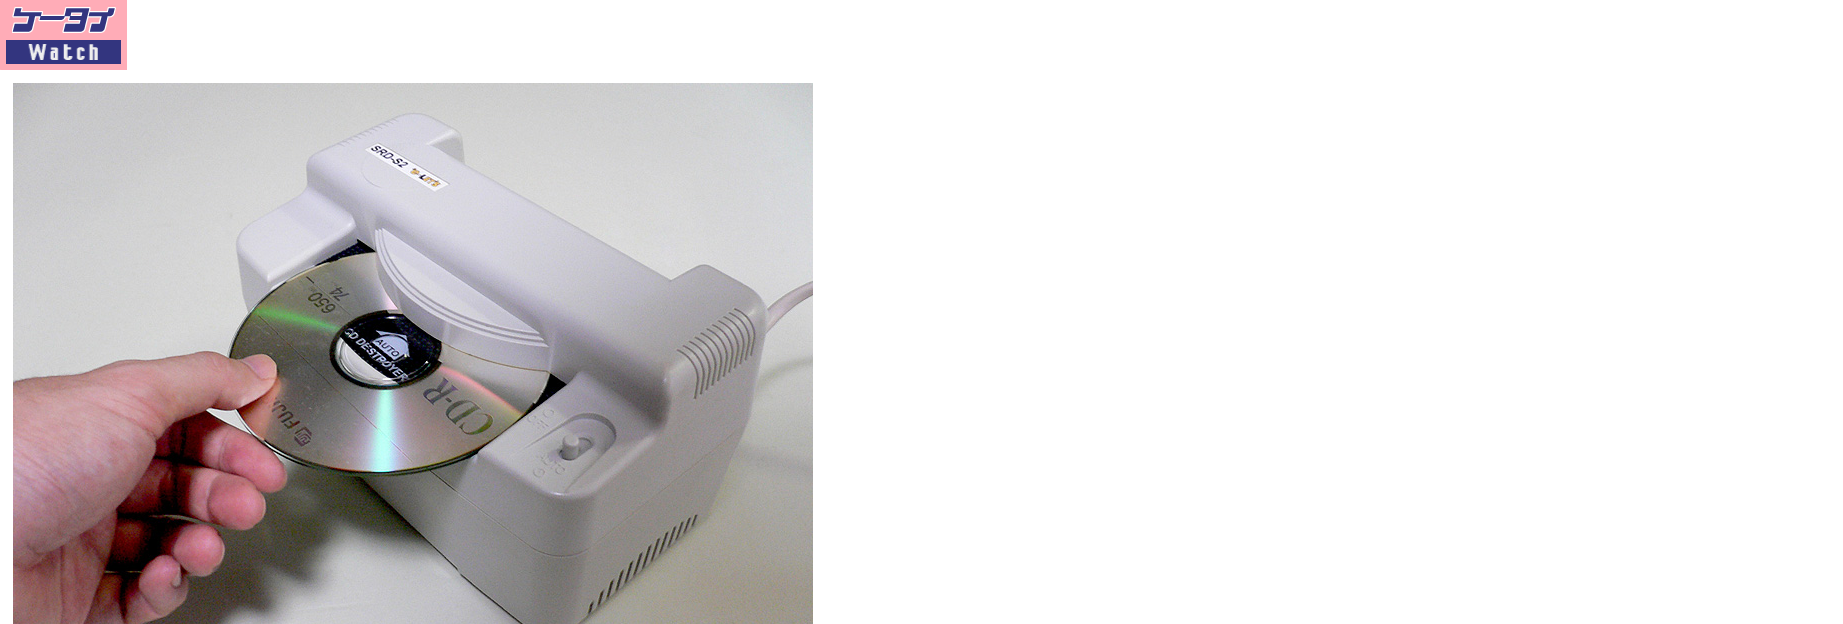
%!PS-Adobe-3.0
%%BoundingBox: 0 0 1843 624
%%LanguageLevel: 3
%%Pages: 1
%%EndComments
%%BeginProlog
/setink { dup -16 bitshift 255 div exch dup -8 bitshift 255 and 255 div exch 255 and 255 div setrgbcolor } def
/drawimage { 5 dict begin { /h /w /y /x /name } { exch def } forall
  gsave x y translate w h scale
  w h 8 [w 0 0 h 0 0] name (r) file false 3 colorimage grestore end } def
%%EndProlog
%%BeginSetup
<< /PageSize [1843 624] >> setpagedevice
%%EndSetup
%%Page: 1 1
0 624 translate 1 -1 scale
4 setmiterlimit
16#FFFFFF setink
0 0 1843 624 rectfill
16#FFACB7 setink
0 0 127 70 rectfill
(img1.raw) 0 5 121 65 drawimage
(img2.raw) 13 83 800 541 drawimage
showpage
%%EOF
